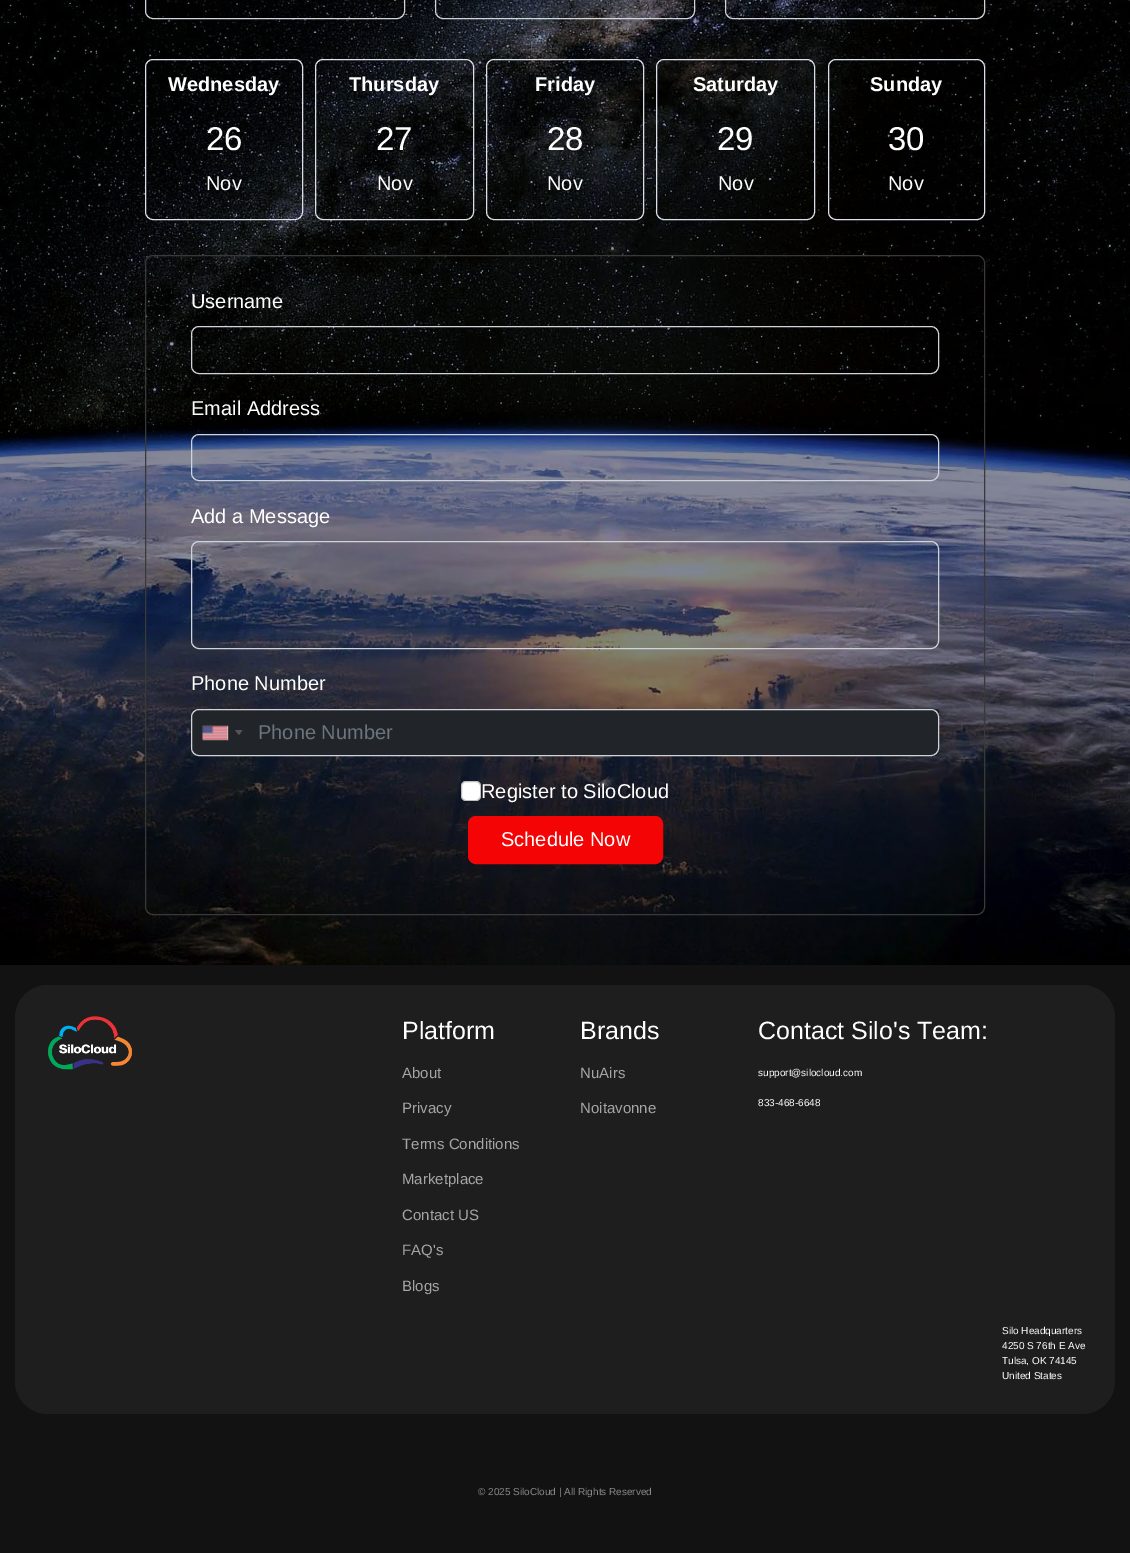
%!PS-Adobe-3.0
%%BoundingBox: 0 0 1130 1553
%%LanguageLevel: 3
%%Pages: 1
%%EndComments
%%BeginProlog
/setink { dup -16 bitshift 255 div exch dup -8 bitshift 255 and 255 div exch 255 and 255 div setrgbcolor } def
/usefont { [ exch dup neg 0 0 3 -1 roll 0 0 ] selectfont } def
/setalpha { dup .setfillconstantalpha .setstrokeconstantalpha } def
/rrect { 5 dict begin { /r /h /w /y /x } { exch def } forall
  x r add y moveto x w add y 2 copy h add r arct x w add y h add x 1 index r arct
  x y h add x y r arct x y 2 copy exch w add exch r arct closepath end } def
/softshadow { 12 dict begin { /a /b /q /h /w /y /x } { exch def } forall gsave /was 0 def
  9 -2 -9 { dup b mul 4 div /e exch def 1 sub .425 mul 2.718 exch exp 1 add a .99 .min exch div /now exch def
    1 1 now sub 1 was sub div sub setalpha /was now def
    w h .min e 2 mul add 0 gt { x e sub y e sub w e 2 mul add h e 2 mul add
      q e add b .6 mul add w h .min 2 div e add .min 0 .max rrect fill } if } for grestore end } def
/drawimage { 5 dict begin { /h /w /y /x /name } { exch def } forall
  gsave x y translate w h scale
  w h 8 [w 0 0 h 0 0] name (r) file false 3 colorimage grestore end } def
%%EndProlog
%%BeginSetup
<< /PageSize [1130 1553] /PageUsesTransparency true >> setpagedevice
%%EndSetup
%%Page: 1 1
0 .pushpdf14devicefilter
0 1553 translate 1 -1 scale
4 setmiterlimit
16#FFFFFF setink
0 0 1130 1553 rectfill
(img1.raw) 0 0 1130 965 drawimage
16#CED4DA setink
145.5 -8.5 259 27 7.5 rrect stroke
435.5 -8.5 259 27 7.5 rrect stroke
725.5 -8.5 259 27 7.5 rrect stroke
16#DBDFEA setink
145.5 59.5 157 160 7.5 rrect stroke
/LiberationSans-Bold 20 usefont
16#FFFFFF setink
168 91 moveto (Wednesday) show
/LiberationSans-Regular 33 usefont
206 150 moveto (26) show
/LiberationSans-Regular 20 usefont
206 190 moveto (Nov) show
16#DBDFEA setink
315.5 59.5 158 160 7.5 rrect stroke
/LiberationSans-Bold 20 usefont
16#FFFFFF setink
349 91 moveto (Thursday) show
/LiberationSans-Regular 33 usefont
376 150 moveto (27) show
/LiberationSans-Regular 20 usefont
377 190 moveto (Nov) show
16#DBDFEA setink
486.5 59.5 157 160 7.5 rrect stroke
/LiberationSans-Bold 20 usefont
16#FFFFFF setink
535 91 moveto (Friday) show
/LiberationSans-Regular 33 usefont
547 150 moveto (28) show
/LiberationSans-Regular 20 usefont
547 190 moveto (Nov) show
16#DBDFEA setink
656.5 59.5 158 160 7.5 rrect stroke
/LiberationSans-Bold 20 usefont
16#FFFFFF setink
693 91 moveto (Saturday) show
/LiberationSans-Regular 33 usefont
717 150 moveto (29) show
/LiberationSans-Regular 20 usefont
718 190 moveto (Nov) show
16#DBDFEA setink
828.5 59.5 156 160 7.5 rrect stroke
/LiberationSans-Bold 20 usefont
16#FFFFFF setink
870 91 moveto (Sunday) show
/LiberationSans-Regular 33 usefont
888 150 moveto (30) show
/LiberationSans-Regular 20 usefont
888 190 moveto (Nov) show
16#3A3939 setink
145.5 255.5 839 659 7.5 rrect stroke
16#FFFFFF setink
191 308 moveto (Username) show
16#CED4DA setink
191.5 326.5 747 47 7.5 rrect stroke
16#FFFFFF setink
191 415 moveto (Email Address) show
16#CED4DA setink
191.5 434.5 747 46 7.5 rrect stroke
16#FFFFFF setink
191 523 moveto (Add a Message) show
16#CED4DA setink
191.5 541.5 747 107 7.5 rrect stroke
16#FFFFFF setink
191 690 moveto (Phone Number) show
16#212529 setink
191 709 748 47 rectfill
16#CED4DA setink
191.5 709.5 747 46 7.5 rrect stroke
16#888888 setink
203 726 25 14 0 0.5 1 softshadow
16#DBDBDB setink
203 726 25 14 rectfill
(img2.raw) 202 726 26 14 drawimage
16#555555 setink
235 730 moveto 242.5 730 lineto 239 735 lineto closepath fill
16#6C757D setink
258 739 moveto (Phone Number) show
16#FFFFFF setink
461 781 20 20 5 rrect fill
0.25 setalpha
16#000000 setink
461.5 781.5 19 19 4.5 rrect stroke
1 setalpha
16#FFFFFF setink
481 798 moveto (Register to SiloCloud) show
16#F40404 setink
468.5 816.5 194 47 7.5 rrect gsave fill grestore
stroke
16#FFFFFF setink
501 846 moveto (Schedule Now) show
16#121212 setink
0 965 1130 588 rectfill
16#1E1E1E setink
15 985 1100 429 33 rrect fill
(img3.raw) 48 1016 84 54 drawimage
/LiberationSans-Regular 25 usefont
16#FFFFFF setink
402 1039 moveto (Platform) show
/LiberationSans-Regular 15 usefont
16#A5A5A5 setink
[
    [(About) 402 1078]
    [(Privacy) 402 1113]
    [(Terms Conditions) 402 1149]
    [(Marketplace) 402 1184]
    [(Contact US) 402 1220]
    [(FAQ's) 402 1255]
    [(Blogs) 402 1291]
] { aload pop moveto show } forall
/LiberationSans-Regular 25 usefont
16#FFFFFF setink
580 1039 moveto (Brands) show
/LiberationSans-Regular 15 usefont
16#A5A5A5 setink
580 1078 moveto (NuAirs) show
580 1113 moveto (Noitavonne) show
/LiberationSans-Regular 25 usefont
16#FFFFFF setink
758 1039 moveto (Contact Silo's Team:) show
/LiberationSans-Regular 10 usefont
[
    [(support@silocloud.com) 758 1076]
    [(833-468-6648) 758 1106]
    [(Silo Headquarters) 1002 1334]
    [(4250 S 76th E Ave) 1002 1349]
    [(Tulsa, OK 74145) 1002 1364]
    [(United States) 1002 1379]
] { aload pop moveto show } forall
16#898989 setink
478 1495 moveto (© 2025 SiloCloud | All Rights Reserved) show
.poppdf14devicefilter showpage
%%EOF
